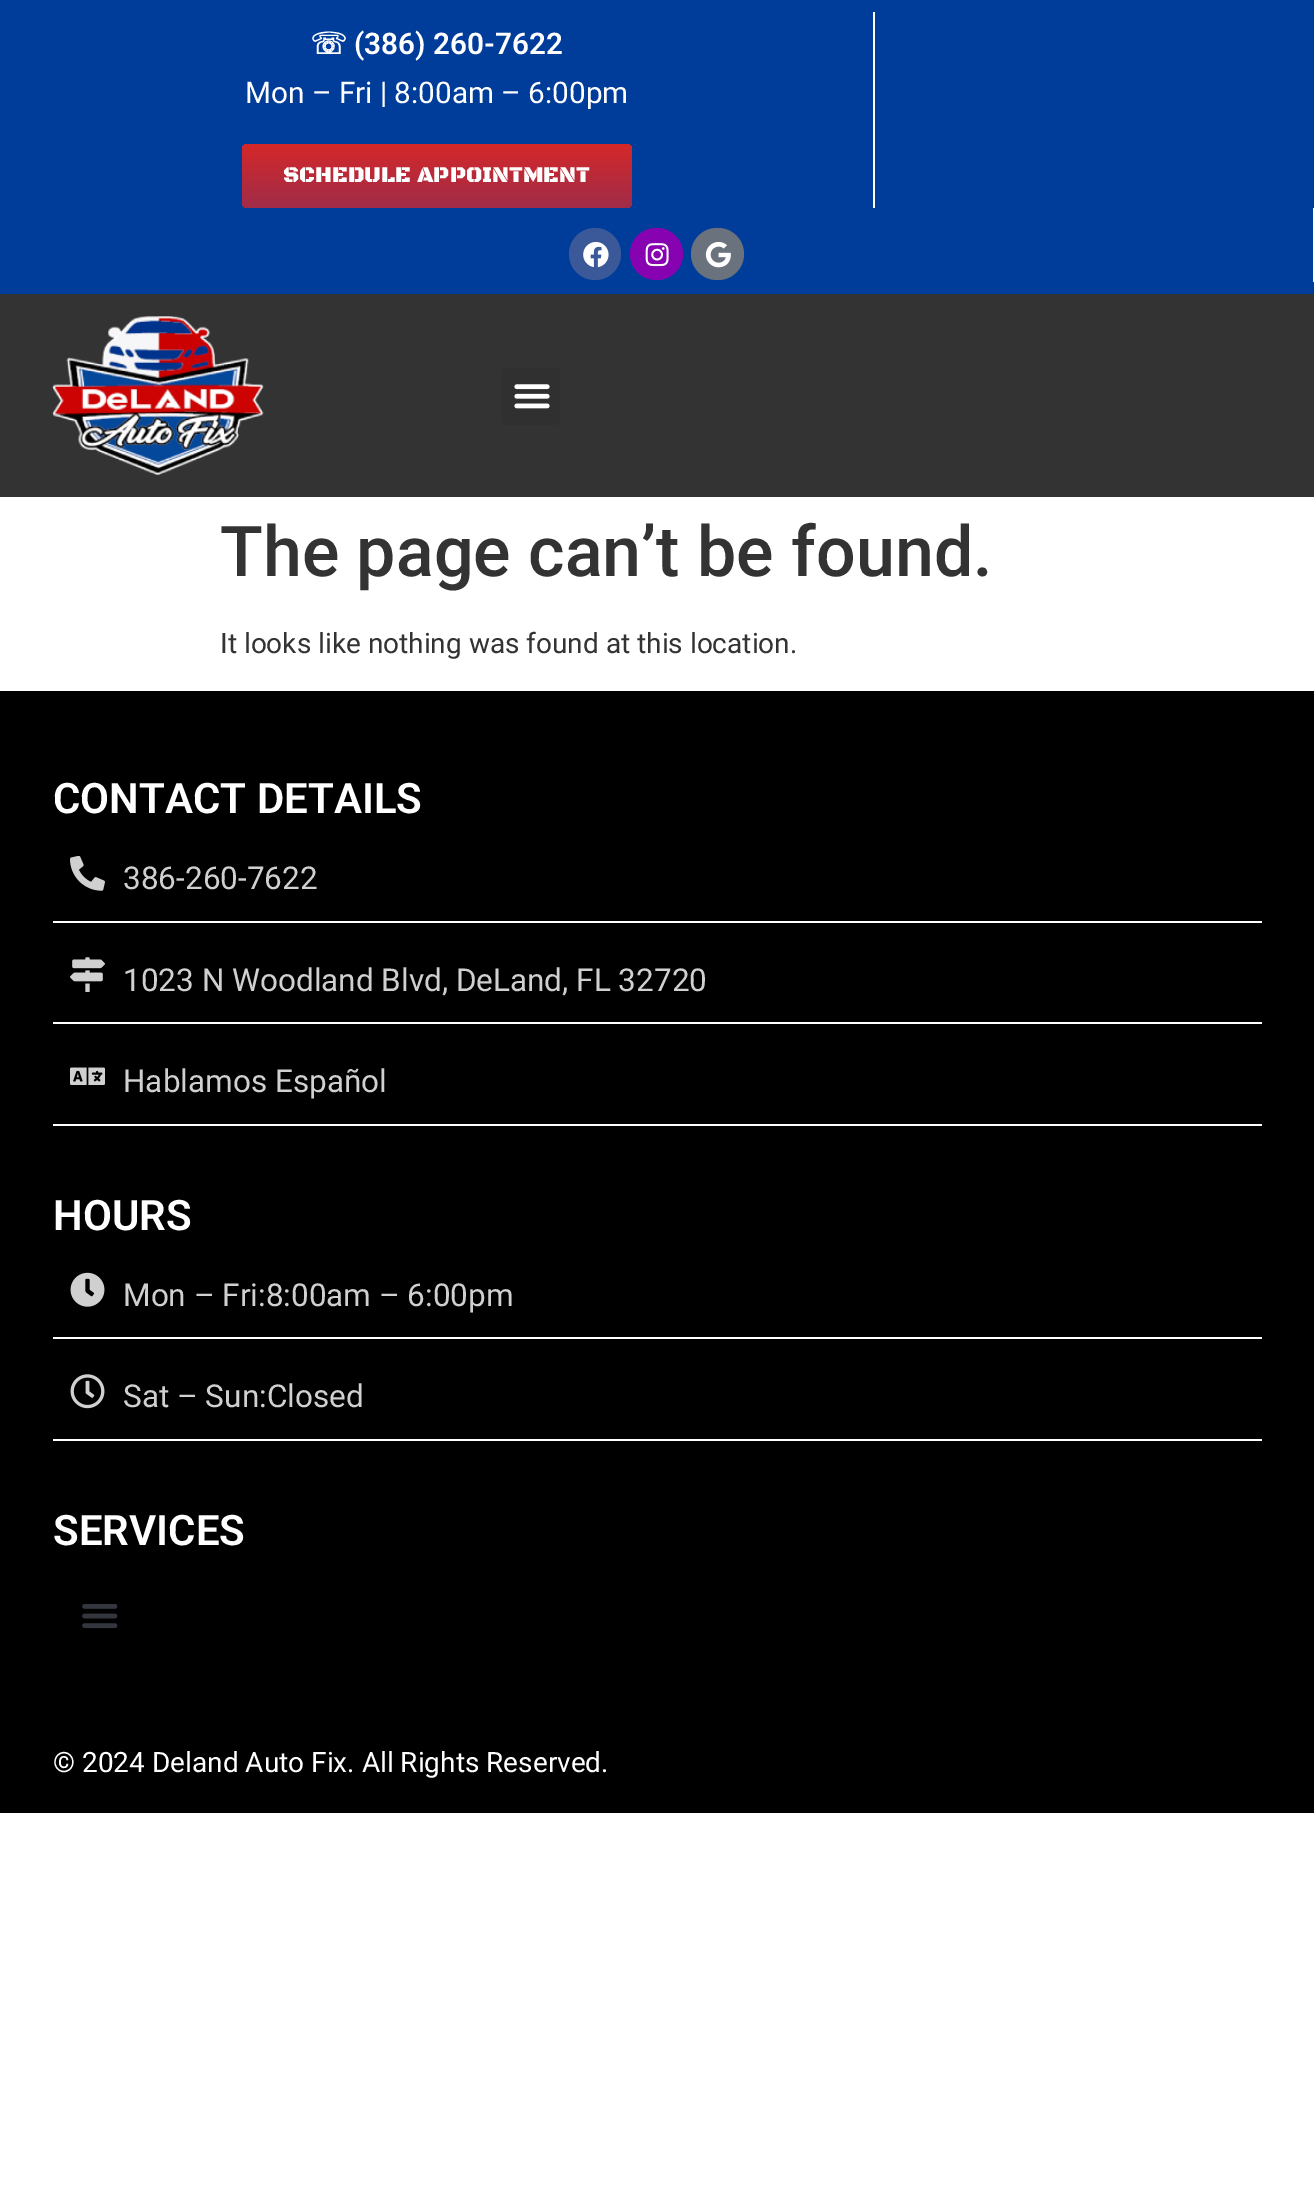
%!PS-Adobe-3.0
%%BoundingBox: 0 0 1314 2194
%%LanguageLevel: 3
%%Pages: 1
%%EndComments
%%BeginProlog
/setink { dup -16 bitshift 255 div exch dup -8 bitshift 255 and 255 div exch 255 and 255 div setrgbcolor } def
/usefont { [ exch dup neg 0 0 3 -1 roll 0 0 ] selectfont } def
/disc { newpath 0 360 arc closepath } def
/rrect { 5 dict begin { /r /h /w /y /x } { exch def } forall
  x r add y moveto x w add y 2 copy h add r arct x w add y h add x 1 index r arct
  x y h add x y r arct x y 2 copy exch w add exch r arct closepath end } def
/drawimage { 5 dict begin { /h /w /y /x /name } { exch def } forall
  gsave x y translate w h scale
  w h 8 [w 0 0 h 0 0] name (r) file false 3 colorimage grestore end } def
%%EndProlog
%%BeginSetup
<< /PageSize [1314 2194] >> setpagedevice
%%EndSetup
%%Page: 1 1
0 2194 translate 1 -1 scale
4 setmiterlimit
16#FFFFFF setink
0 0 1314 2194 rectfill
16#003D9A setink
0 0 1314 294 rectfill
16#FFFFFF setink
873 12 2 196 rectfill
/DejaVuSans-Bold 29.75 usefont
310 54 moveto (☏) show
/Roboto-SemiBold 29.75 usefont
354 54 moveto (\(386\) 260-7622) show
/Roboto-Regular 29.75 usefont
245 103 moveto (Mon – Fri | 8:00am – 6:00pm) show
gsave 242 144 390 64 5 rrect clip newpath
<< /ShadingType 2 /ColorSpace /DeviceRGB /Coords [437 143 437 208] /Extend [true true] /Function << /FunctionType 2 /Domain [0 1] /C0 [0.835 0.157 0.157] /C1 [0.627 0.173 0.286] /N 1 >> >> shfill grestore
/BlackOpsOne-Black 22.75 usefont
283 182 moveto (SCHEDULE APPOINTMENT) show
1313 208 1 74 rectfill
16#3B5998 setink
595 254 26 disc fill
(img1.raw) 583 242 26 26 drawimage
16#8703B1 setink
630 228 53 52 26 rrect fill
(img2.raw) 645 243 24 24 drawimage
16#69727D setink
691 228 53 52 26 rrect fill
(img3.raw) 705 242 26 26 drawimage
16#333333 setink
0 294 1314 203 rectfill
(img4.raw) 51 316 213 159 drawimage
16#303030 setink
502 368 58 57 5 rrect fill
(img5.raw) 514 384 36 25 drawimage
/Roboto-Medium 70 usefont
16#333333 setink
220 576 moveto (The page can’t be found.) show
/Roboto-Regular 28 usefont
220 653 moveto (It looks like nothing was found at this location.) show
16#000000 setink
0 691 1314 1122 rectfill
/Roboto-SemiBold 42 usefont
16#FFFFFF setink
53 813 moveto (CONTACT DETAILS) show
53 921 1209 2 rectfill
(img6.raw) 70 856 35 35 drawimage
/Roboto-Regular 31.5 usefont
16#D0D0D0 setink
123 889 moveto (386-260-7622) show
16#FFFFFF setink
53 1022 1209 2 rectfill
(img7.raw) 70 957 35 35 drawimage
16#D0D0D0 setink
123 991 moveto (1023 N Woodland Blvd, DeLand, FL 32720) show
16#FFFFFF setink
53 1124 1209 2 rectfill
(img8.raw) 70 1067 35 18 drawimage
16#D0D0D0 setink
123 1092 moveto (Hablamos Español) show
/Roboto-SemiBold 42 usefont
16#FFFFFF setink
53 1230 moveto (HOURS) show
53 1337 1209 2 rectfill
(img9.raw) 70 1272 35 35 drawimage
/Roboto-Regular 31.5 usefont
16#D0D0D0 setink
123 1306 moveto (Mon – Fri:8:00am – 6:00pm) show
16#FFFFFF setink
53 1439 1209 2 rectfill
(img10.raw) 70 1374 35 35 drawimage
16#D0D0D0 setink
123 1407 moveto (Sat – Sun:Closed) show
/Roboto-SemiBold 42 usefont
16#FFFFFF setink
53 1545 moveto (SERVICES) show
(img11.raw) 82 1604 36 25 drawimage
/Roboto-Regular 28 usefont
53 1772 moveto (© 2024 Deland Auto Fix. All Rights Reserved.) show
showpage
%%EOF
